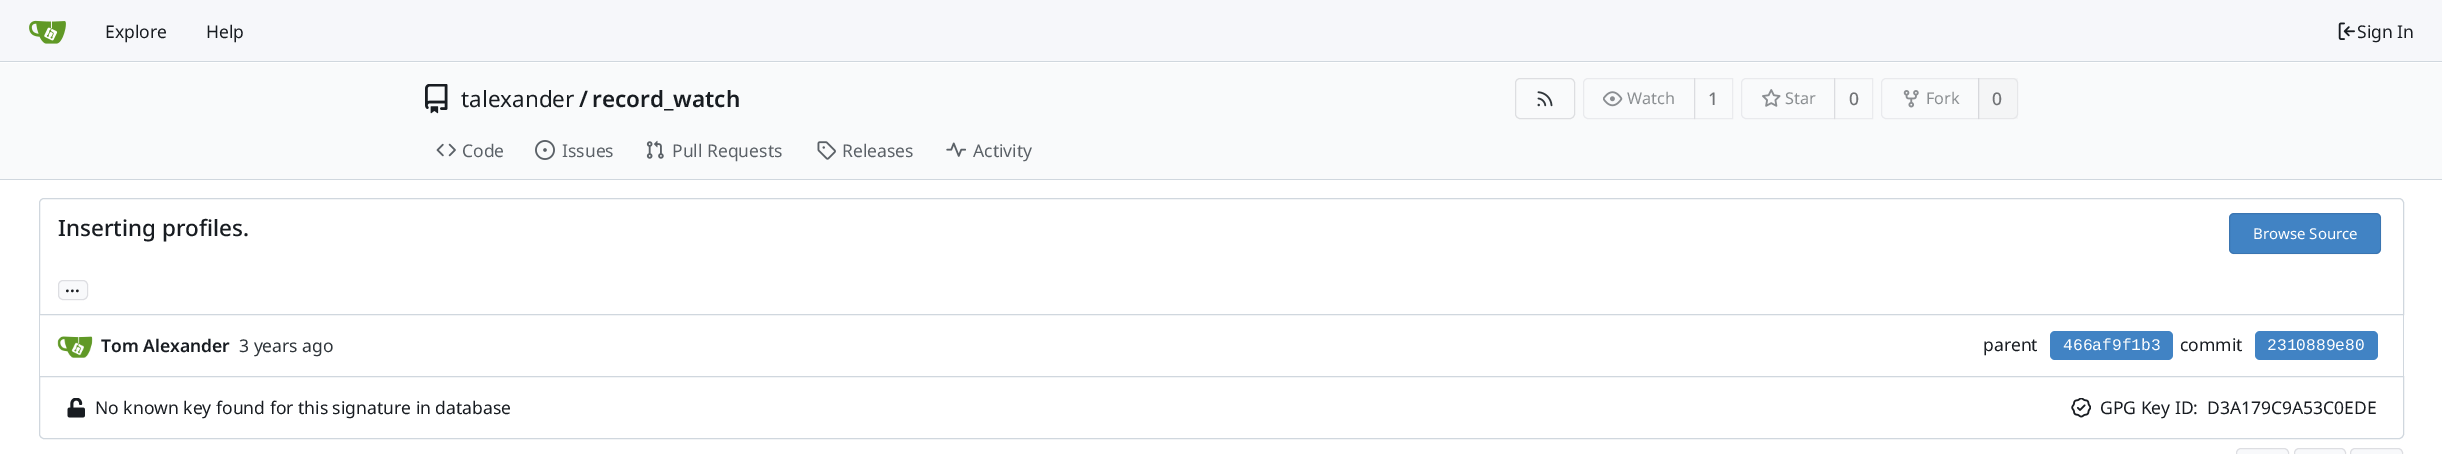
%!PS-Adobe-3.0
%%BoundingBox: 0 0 2442 454
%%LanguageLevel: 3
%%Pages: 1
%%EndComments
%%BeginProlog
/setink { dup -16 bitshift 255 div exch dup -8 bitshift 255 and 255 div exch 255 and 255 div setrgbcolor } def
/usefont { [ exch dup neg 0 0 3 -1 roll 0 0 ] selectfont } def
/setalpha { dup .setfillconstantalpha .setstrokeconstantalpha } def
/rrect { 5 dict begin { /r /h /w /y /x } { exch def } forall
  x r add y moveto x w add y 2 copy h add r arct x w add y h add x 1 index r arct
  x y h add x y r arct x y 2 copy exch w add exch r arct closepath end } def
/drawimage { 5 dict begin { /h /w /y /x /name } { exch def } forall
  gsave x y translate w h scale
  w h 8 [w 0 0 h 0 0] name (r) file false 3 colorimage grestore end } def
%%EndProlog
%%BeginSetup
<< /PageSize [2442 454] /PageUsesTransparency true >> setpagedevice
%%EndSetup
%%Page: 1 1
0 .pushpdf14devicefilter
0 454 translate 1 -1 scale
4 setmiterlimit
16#FFFFFF setink
0 0 2442 454 rectfill
16#F6F7FA setink
0 0 2442 61 rectfill
16#D0D7DE setink
0 61 2442 1 rectfill
(img1.raw) 29 20 37 24 drawimage
/NotoSans-Regular 17.5 usefont
16#181C21 setink
105 38 moveto (Explore) show
206 38 moveto (Help) show
(img2.raw) 2338 22 17 18 drawimage
2357 38 moveto (Sign In) show
16#F9FAFB setink
0 63 2442 116 rectfill
(img3.raw) 425 84 23 30 drawimage
/NotoSans-Regular 22.5 usefont
16#181C21 setink
461 107 moveto (talexander) show
/NotoSans-SemiBold 22.5 usefont
579 107 moveto (/) show
592 107 moveto (record_watch) show
16#DDDEE1 setink
1515.5 78.5 59 40 4.5 rrect stroke
(img4.raw) 1537 91 16 16 drawimage
16#E9EAED setink
1588 78.5 moveto 1694.5 78.5 lineto 1694.5 118.5 lineto 1588 118.5 lineto 1585.5 118.5 1583.5 116.5 1583.5 114 curveto 1583.5 83 lineto 1583.5 80.5 1585.5 78.5 1588 78.5 curveto closepath stroke
(img5.raw) 1603 91 20 16 drawimage
/NotoSans-Regular 16.25 usefont
16#8A8E91 setink
1627 104 moveto (Watch) show
0.06 setalpha
16#000017 setink
1694.5 78.5 38 40 rectstroke
/NotoSans-Medium 17.5 usefont
1 setalpha
16#717376 setink
1708 105 moveto (1) show
16#E9EAED setink
1746 78.5 moveto 1834.5 78.5 lineto 1834.5 118.5 lineto 1746 118.5 lineto 1743.5 118.5 1741.5 116.5 1741.5 114 curveto 1741.5 83 lineto 1741.5 80.5 1743.5 78.5 1746 78.5 curveto closepath stroke
(img6.raw) 1762 89 19 18 drawimage
/NotoSans-Regular 16.25 usefont
16#8A8E91 setink
1785 104 moveto (Star) show
0.06 setalpha
16#000017 setink
1834.5 78.5 38 40 rectstroke
/NotoSans-Medium 17.5 usefont
1 setalpha
16#717376 setink
1849 105 moveto (0) show
16#E9EAED setink
1886 78.5 moveto 1978.5 78.5 lineto 1978.5 118.5 lineto 1886 118.5 lineto 1883.5 118.5 1881.5 116.5 1881.5 114 curveto 1881.5 83 lineto 1881.5 80.5 1883.5 78.5 1886 78.5 curveto closepath stroke
(img7.raw) 1903 90 16 18 drawimage
/NotoSans-Regular 16.25 usefont
16#8A8E91 setink
1926 104 moveto (Fork) show
0.04 setalpha
16#707171 setink
1978 78 40 41 rectfill
0.11 setalpha
16#70717E setink
1978.5 78.5 moveto 2013 78.5 lineto 2015.5 78.5 2017.5 80.5 2017.5 83 curveto 2017.5 114 lineto 2017.5 116.5 2015.5 118.5 2013 118.5 curveto 1978.5 118.5 lineto closepath stroke
/NotoSans-Medium 17.5 usefont
1 setalpha
16#717376 setink
1992 105 moveto (0) show
(img8.raw) 436 143 20 14 drawimage
/NotoSans-Regular 17.5 usefont
16#5B6167 setink
462 157 moveto (Code) show
(img9.raw) 535 140 20 20 drawimage
562 157 moveto (Issues) show
(img10.raw) 646 140 18 19 drawimage
672 157 moveto (Pull Requests) show
(img11.raw) 817 141 19 19 drawimage
842 157 moveto (Releases) show
(img12.raw) 946 142 20 15 drawimage
973 157 moveto (Activity) show
16#D0D7DE setink
0 179 2442 1 rectfill
44 198.5 moveto 2399 198.5 lineto 2401.5 198.5 2403.5 200.5 2403.5 203 curveto 2403.5 314.5 lineto 39.5 314.5 lineto 39.5 203 lineto 39.5 200.5 41.5 198.5 44 198.5 curveto closepath stroke
/NotoSans-Medium 22.5 usefont
16#181C21 setink
58 236 moveto (Inserting profiles.) show
16#4183C4 setink
2229 213 152 41 5 rrect fill
0.11 setalpha
16#000017 setink
2229.5 213.5 151 40 4.5 rrect stroke
/NotoSans-Regular 15 usefont
1 setalpha
16#FFFFFF setink
2253 239 moveto (Browse Source) show
16#F8F9FB setink
58 280 30 20 5 rrect fill
0.11 setalpha
16#000017 setink
58.5 280.5 29 19 4.5 rrect stroke
/NotoSans-SemiBold 17.5 usefont
1 setalpha
16#181C21 setink
65 292 moveto (...) show
16#D0D7DE setink
2403 315 1 63 rectfill
39 315 1 63 rectfill
(img13.raw) 57 336 36 22 drawimage
16#181C21 setink
101 352 moveto (Tom Alexander) show
/NotoSans-Regular 17.5 usefont
16#30363B setink
239 352 moveto (3 years ago) show
16#181C21 setink
1983 351 moveto (parent) show
16#4183C4 setink
2050 331 123 29 5 rrect fill
/LiberationMono-Regular 16.25 usefont
16#FFFFFF setink
2063 350 moveto (466af9f1b3) show
/NotoSans-Regular 17.5 usefont
16#181C21 setink
2180 351 moveto (commit) show
16#4183C4 setink
2255 331 123 29 5 rrect fill
/LiberationMono-Regular 16.25 usefont
16#FFFFFF setink
2267 350 moveto (2310889e80) show
39.5 376.5 moveto 2403.5 376.5 lineto 2403.5 434 lineto 2403.5 436.5 2401.5 438.5 2399 438.5 curveto 44 438.5 lineto 41.5 438.5 39.5 436.5 39.5 434 curveto closepath gsave fill grestore
16#D0D7DE setink
stroke
(img14.raw) 67 398 18 20 drawimage
/NotoSans-Regular 17.5 usefont
16#181C21 setink
95 414 moveto (No known key found for this signature in database) show
(img15.raw) 2071 398 20 20 drawimage
2100 414 moveto (GPG Key ID:) show
2207 414 moveto (D3A179C9A53C0EDE) show
16#F8F9FB setink
2236 448 53 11 5 rrect fill
0.11 setalpha
16#000017 setink
2236.5 448.5 52 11 4.5 rrect stroke
1 setalpha
16#F8F9FB setink
2294 448 52 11 5 rrect fill
0.11 setalpha
16#000017 setink
2294.5 448.5 51 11 4.5 rrect stroke
1 setalpha
16#F8F9FB setink
2350 448 53 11 5 rrect fill
0.11 setalpha
16#000017 setink
2350.5 448.5 52 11 4.5 rrect stroke
.poppdf14devicefilter showpage
%%EOF
